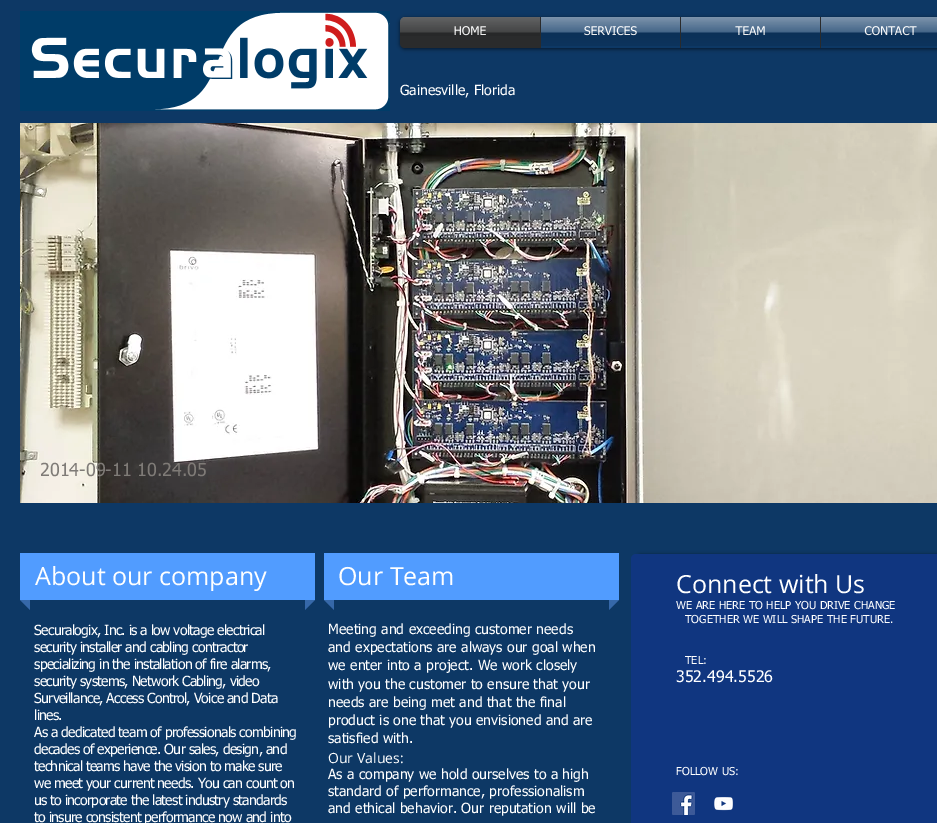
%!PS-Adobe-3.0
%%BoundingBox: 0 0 937 823
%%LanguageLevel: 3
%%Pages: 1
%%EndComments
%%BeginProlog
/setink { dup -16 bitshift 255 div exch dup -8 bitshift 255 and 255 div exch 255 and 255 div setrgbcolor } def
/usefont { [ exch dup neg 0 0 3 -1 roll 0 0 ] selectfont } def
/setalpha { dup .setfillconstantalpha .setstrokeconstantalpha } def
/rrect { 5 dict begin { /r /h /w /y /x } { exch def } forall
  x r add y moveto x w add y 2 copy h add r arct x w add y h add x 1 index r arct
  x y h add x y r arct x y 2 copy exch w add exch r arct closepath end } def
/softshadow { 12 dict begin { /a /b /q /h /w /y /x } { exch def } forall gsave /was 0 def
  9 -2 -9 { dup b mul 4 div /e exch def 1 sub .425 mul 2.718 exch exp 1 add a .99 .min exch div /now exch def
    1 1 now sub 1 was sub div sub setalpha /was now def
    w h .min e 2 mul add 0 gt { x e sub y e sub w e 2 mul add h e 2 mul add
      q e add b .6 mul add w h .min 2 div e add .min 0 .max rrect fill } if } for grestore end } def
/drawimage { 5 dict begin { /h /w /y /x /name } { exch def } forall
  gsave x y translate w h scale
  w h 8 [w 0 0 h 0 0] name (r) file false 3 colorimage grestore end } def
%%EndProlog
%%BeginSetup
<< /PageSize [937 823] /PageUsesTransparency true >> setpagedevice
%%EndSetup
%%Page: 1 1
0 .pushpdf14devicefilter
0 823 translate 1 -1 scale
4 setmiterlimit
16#0D3865 setink
0 0 937 823 rectfill
(img1.raw) 20 11 370 100 drawimage
gsave
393 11 moveto 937 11 lineto 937 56 lineto 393 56 lineto closepath 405 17 moveto 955 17 lineto 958 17 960 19 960 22 curveto 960 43 lineto 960 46 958 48 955 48 curveto 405 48 lineto 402 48 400 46 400 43 curveto 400 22 lineto 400 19 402 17 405 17 curveto closepath eoclip newpath
16#000000 setink
400 18 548 31 5 2 0.6 softshadow
grestore
(img2.raw) 400 17 537 29 drawimage
16#2A2B2C setink
405 17 moveto 540 17 lineto 540 48 lineto 405 48 lineto 402 48 400 46 400 43 curveto 400 22 lineto 400 19 402 17 405 17 curveto closepath fill
/tahoma-Regular 12 usefont
16#FFFFFF setink
454 35 moveto (HOME) show
(img3.raw) 400 17 140 19 drawimage
16#2A2B2C setink
540 17 1 31 rectfill
16#FFFFFF setink
584 35 moveto (SERVICES) show
(img4.raw) 541 17 139 29 drawimage
16#2A2B2C setink
680 17 1 31 rectfill
16#FFFFFF setink
735 35 moveto (TEAM) show
(img5.raw) 681 17 139 29 drawimage
16#2A2B2C setink
820 17 1 31 rectfill
16#FFFFFF setink
864 35 moveto (CONTACT) show
(img6.raw) 821 17 116 29 drawimage
/tahoma-Regular 14 usefont
400 95 moveto (Gainesville, Florida) show
(img7.raw) 20 123 917 380 drawimage
/tahoma-Regular 18 usefont
16#7F7B77 setink
40 476 moveto (2014-09-11 10.24.05) show
16#519CFF setink
20 553 295 47 rectfill
/OpenSans-Regular 25 usefont
16#FFFFFF setink
35 585 moveto (About our company) show
16#3668A9 setink
20 600 moveto 30 600 lineto 30 610 lineto closepath fill
305 600 moveto 315 600 lineto 305 610 lineto closepath fill
16#519CFF setink
324 553 295 47 rectfill
16#FFFFFF setink
338 585 moveto (Our Team) show
16#3668A9 setink
324 600 moveto 334 600 lineto 334 610 lineto closepath fill
609 600 moveto 619 600 lineto 609 610 lineto closepath fill
16#000000 setink
636 555 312 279 5 2 0.6 softshadow
16#103680 setink
631 554 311 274 5 rrect fill
16#FFFFFF setink
676 593 moveto (Connect with Us) show
/tahoma-Regular 11 usefont
[
    [(WE ARE HERE TO HELP YOU DRIVE CHANGE) 676 609]
    [(TOGETHER WE WILL SHAPE THE FUTURE.) 685 623]
    [(TEL:) 685 664]
] { aload pop moveto show } forall
/tahoma-Regular 16 usefont
676 682 moveto (352.494.5526) show
/tahoma-Regular 11 usefont
676 775 moveto (FOLLOW US:) show
(img8.raw) 672 792 23 23 drawimage
(img9.raw) 714 797 19 14 drawimage
/tahoma-Regular 14 usefont
34 635 moveto -0.7 0 (Securalogix, Inc. is a low voltage electrical) ashow
34 652 moveto -0.7 0 (security installer and cabling contractor) ashow
34 669 moveto -0.7 0 (specializing in the installation of fire alarms,) ashow
34 686 moveto -0.7 0 (security systems, Network Cabling, video) ashow
34 703 moveto -0.7 0 (Surveillance, Access Control, Voice and Data) ashow
34 720 moveto -0.7 0 (lines.) ashow
34 737 moveto -0.7 0 (As a dedicated team of professionals combining) ashow
34 754 moveto -0.7 0 (decades of experience. Our sales, design, and) ashow
34 771 moveto -0.7 0 (technical teams have the vision to make sure) ashow
34 788 moveto -0.7 0 (we meet your current needs. You can count on) ashow
34 805 moveto -0.7 0 (us to incorporate the latest industry standards) ashow
34 822 moveto -0.7 0 (to insure consistent performance now and into) ashow
[
    [(Meeting and exceeding customer needs) 328 634]
    [(and expectations are always our goal when) 328 652]
    [(we enter into a project. We work closely) 328 670]
    [(with you the customer to ensure that your) 328 689]
    [(needs are being met and that the final) 328 707]
    [(product is one that you envisioned and are) 328 725]
    [(satisfied with.) 328 743]
] { aload pop moveto show } forall
/OpenSans-Regular 14 usefont
328 763 moveto (Our Values:) show
/tahoma-Regular 14 usefont
[
    [(As a company we hold ourselves to a high) 328 779]
    [(standard of performance, professionalism) 328 796]
    [(and ethical behavior. Our reputation will be) 328 813]
] { aload pop moveto show } forall
.poppdf14devicefilter showpage
%%EOF
